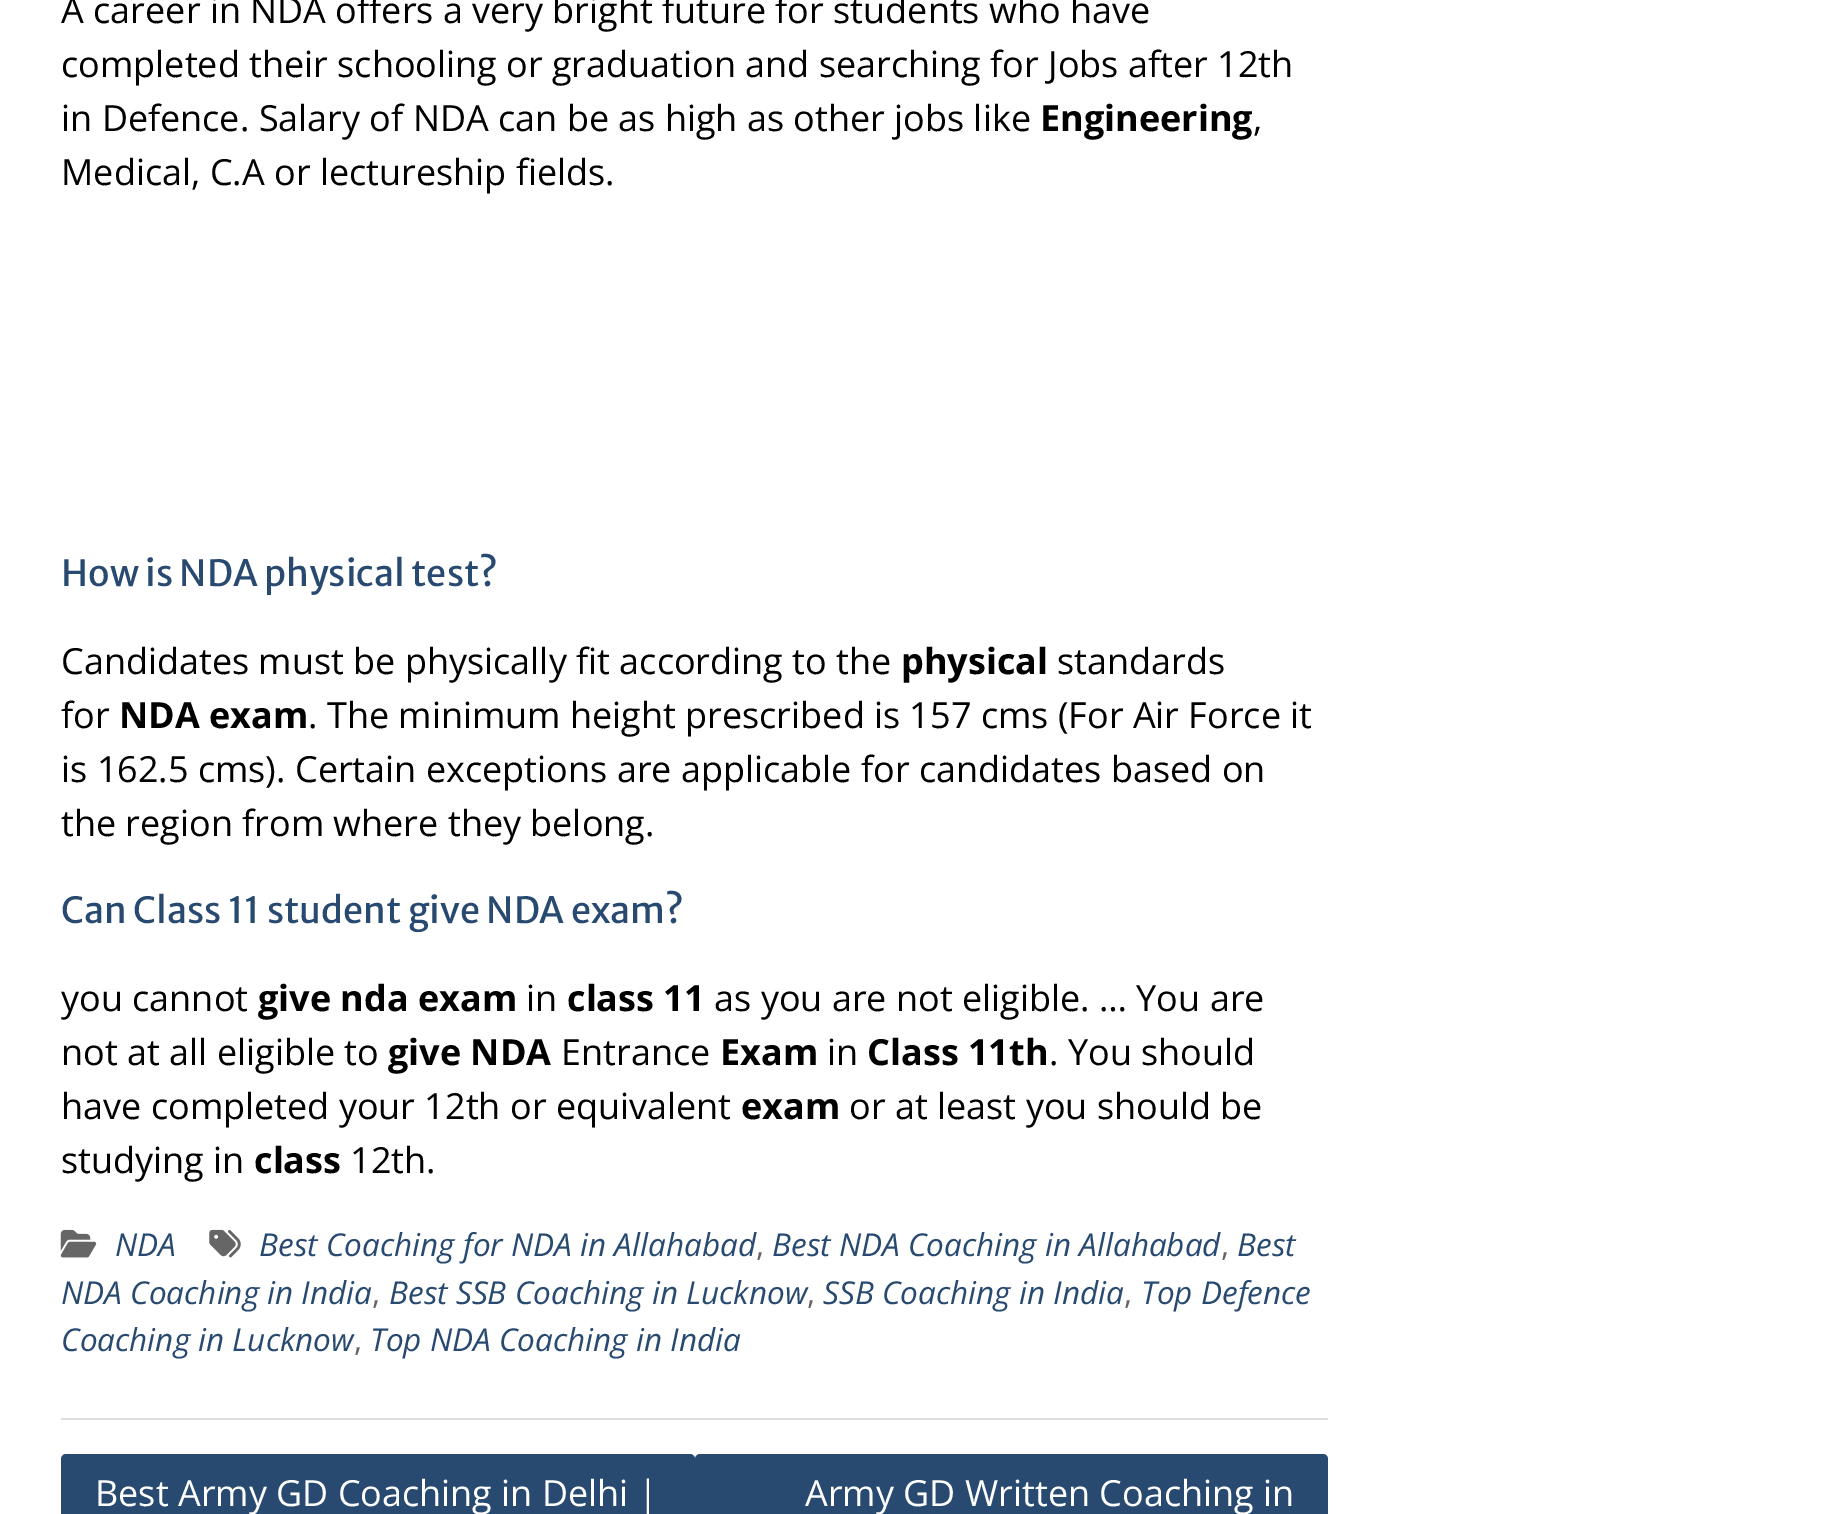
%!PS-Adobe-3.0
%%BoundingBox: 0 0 1833 1514
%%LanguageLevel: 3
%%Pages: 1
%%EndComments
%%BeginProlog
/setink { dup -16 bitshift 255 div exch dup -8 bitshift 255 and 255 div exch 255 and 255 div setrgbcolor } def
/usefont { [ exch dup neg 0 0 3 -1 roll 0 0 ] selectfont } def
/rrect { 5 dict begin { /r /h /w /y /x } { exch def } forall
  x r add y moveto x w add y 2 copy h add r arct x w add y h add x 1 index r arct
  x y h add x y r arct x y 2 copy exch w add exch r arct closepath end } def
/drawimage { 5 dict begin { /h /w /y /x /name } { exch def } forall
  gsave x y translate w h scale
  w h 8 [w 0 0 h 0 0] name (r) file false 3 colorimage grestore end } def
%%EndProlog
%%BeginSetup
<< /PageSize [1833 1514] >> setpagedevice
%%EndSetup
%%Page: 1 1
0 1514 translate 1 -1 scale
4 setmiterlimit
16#FFFFFF setink
0 0 1833 1514 rectfill
16#DDDDDD setink
61 1418 1267 2 rectfill
/OpenSans-Regular 36 usefont
16#000000 setink
[
    [(A career in NDA offers a very bright future for students who have) 61 23]
    [(completed their schooling or graduation and searching for Jobs after 12th) 61 77]
    [(in Defence. Salary of NDA can be as high as other jobs like) 61 131]
] { aload pop moveto show } forall
/OpenSans-Bold 36 usefont
1040 131 moveto (Engineering) show
/OpenSans-Regular 36 usefont
1253 131 moveto (,) show
61 185 moveto (Medical, C.A or lectureship fields.) show
/MerriweatherSans-Regular 36 usefont
16#294A70 setink
61 586 moveto (How is NDA physical test?) show
/OpenSans-Regular 36 usefont
16#000000 setink
61 674 moveto (Candidates must be physically fit according to the) show
/OpenSans-Bold 36 usefont
901 674 moveto (physical) show
/OpenSans-Regular 36 usefont
1057 674 moveto (standards) show
61 728 moveto (for) show
/OpenSans-Bold 36 usefont
119 728 moveto (NDA exam) show
/OpenSans-Regular 36 usefont
[
    [(. The minimum height prescribed is 157 cms \(For Air Force it) 308 728]
    [(is 162.5 cms\). Certain exceptions are applicable for candidates based on) 61 782]
    [(the region from where they belong.) 61 836]
] { aload pop moveto show } forall
/MerriweatherSans-Regular 36 usefont
16#294A70 setink
61 923 moveto (Can Class 11 student give NDA exam?) show
/OpenSans-Regular 36 usefont
16#000000 setink
61 1011 moveto (you cannot) show
/OpenSans-Bold 36 usefont
258 1011 moveto (give nda exam) show
/OpenSans-Regular 36 usefont
526 1011 moveto (in) show
/OpenSans-Bold 36 usefont
567 1011 moveto (class 11) show
/OpenSans-Regular 36 usefont
714 1011 moveto (as you are not eligible. … You are) show
61 1065 moveto (not at all eligible to) show
/OpenSans-Bold 36 usefont
388 1065 moveto (give NDA) show
/OpenSans-Regular 36 usefont
561 1065 moveto (Entrance) show
/OpenSans-Bold 36 usefont
720 1065 moveto (Exam) show
/OpenSans-Regular 36 usefont
827 1065 moveto (in) show
/OpenSans-Bold 36 usefont
867 1065 moveto (Class 11th) show
/OpenSans-Regular 36 usefont
1049 1065 moveto (. You should) show
61 1119 moveto (have completed your 12th or equivalent) show
/OpenSans-Bold 36 usefont
741 1119 moveto (exam) show
/OpenSans-Regular 36 usefont
849 1119 moveto (or at least you should be) show
61 1173 moveto (studying in) show
/OpenSans-Bold 36 usefont
254 1173 moveto (class) show
/OpenSans-Regular 36 usefont
350 1173 moveto (12th.) show
(img1.raw) 209 1229 32 29 drawimage
/OpenSans-Italic 31.5 usefont
16#294A70 setink
259 1256 moveto (Best Coaching for NDA in Allahabad) show
/OpenSans-Regular 31.5 usefont
16#666666 setink
756 1256 moveto (,) show
/OpenSans-Italic 31.5 usefont
16#294A70 setink
772 1256 moveto (Best NDA Coaching in Allahabad) show
/OpenSans-Regular 31.5 usefont
16#666666 setink
1221 1256 moveto (,) show
/OpenSans-Italic 31.5 usefont
16#294A70 setink
1237 1256 moveto (Best) show
61 1304 moveto (NDA Coaching in India) show
/OpenSans-Regular 31.5 usefont
16#666666 setink
372 1304 moveto (,) show
/OpenSans-Italic 31.5 usefont
16#294A70 setink
389 1304 moveto (Best SSB Coaching in Lucknow) show
/OpenSans-Regular 31.5 usefont
16#666666 setink
807 1304 moveto (,) show
/OpenSans-Italic 31.5 usefont
16#294A70 setink
823 1304 moveto (SSB Coaching in India) show
/OpenSans-Regular 31.5 usefont
16#666666 setink
1124 1304 moveto (,) show
/OpenSans-Italic 31.5 usefont
16#294A70 setink
1141 1304 moveto (Top Defence) show
61 1351 moveto (Coaching in Lucknow) show
/OpenSans-Regular 31.5 usefont
16#666666 setink
354 1351 moveto (,) show
/OpenSans-Italic 31.5 usefont
16#294A70 setink
370 1351 moveto (Top NDA Coaching in India) show
(img2.raw) 60 1229 37 29 drawimage
115 1256 moveto (NDA) show
61 1454 634 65 5 rrect fill
/OpenSans-Regular 36 usefont
16#FFFFFF setink
95 1506 moveto (Best Army GD Coaching in Delhi |) show
16#294A70 setink
695 1454 633 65 5 rrect fill
16#FFFFFF setink
805 1506 moveto (Army GD Written Coaching in) show
showpage
%%EOF
